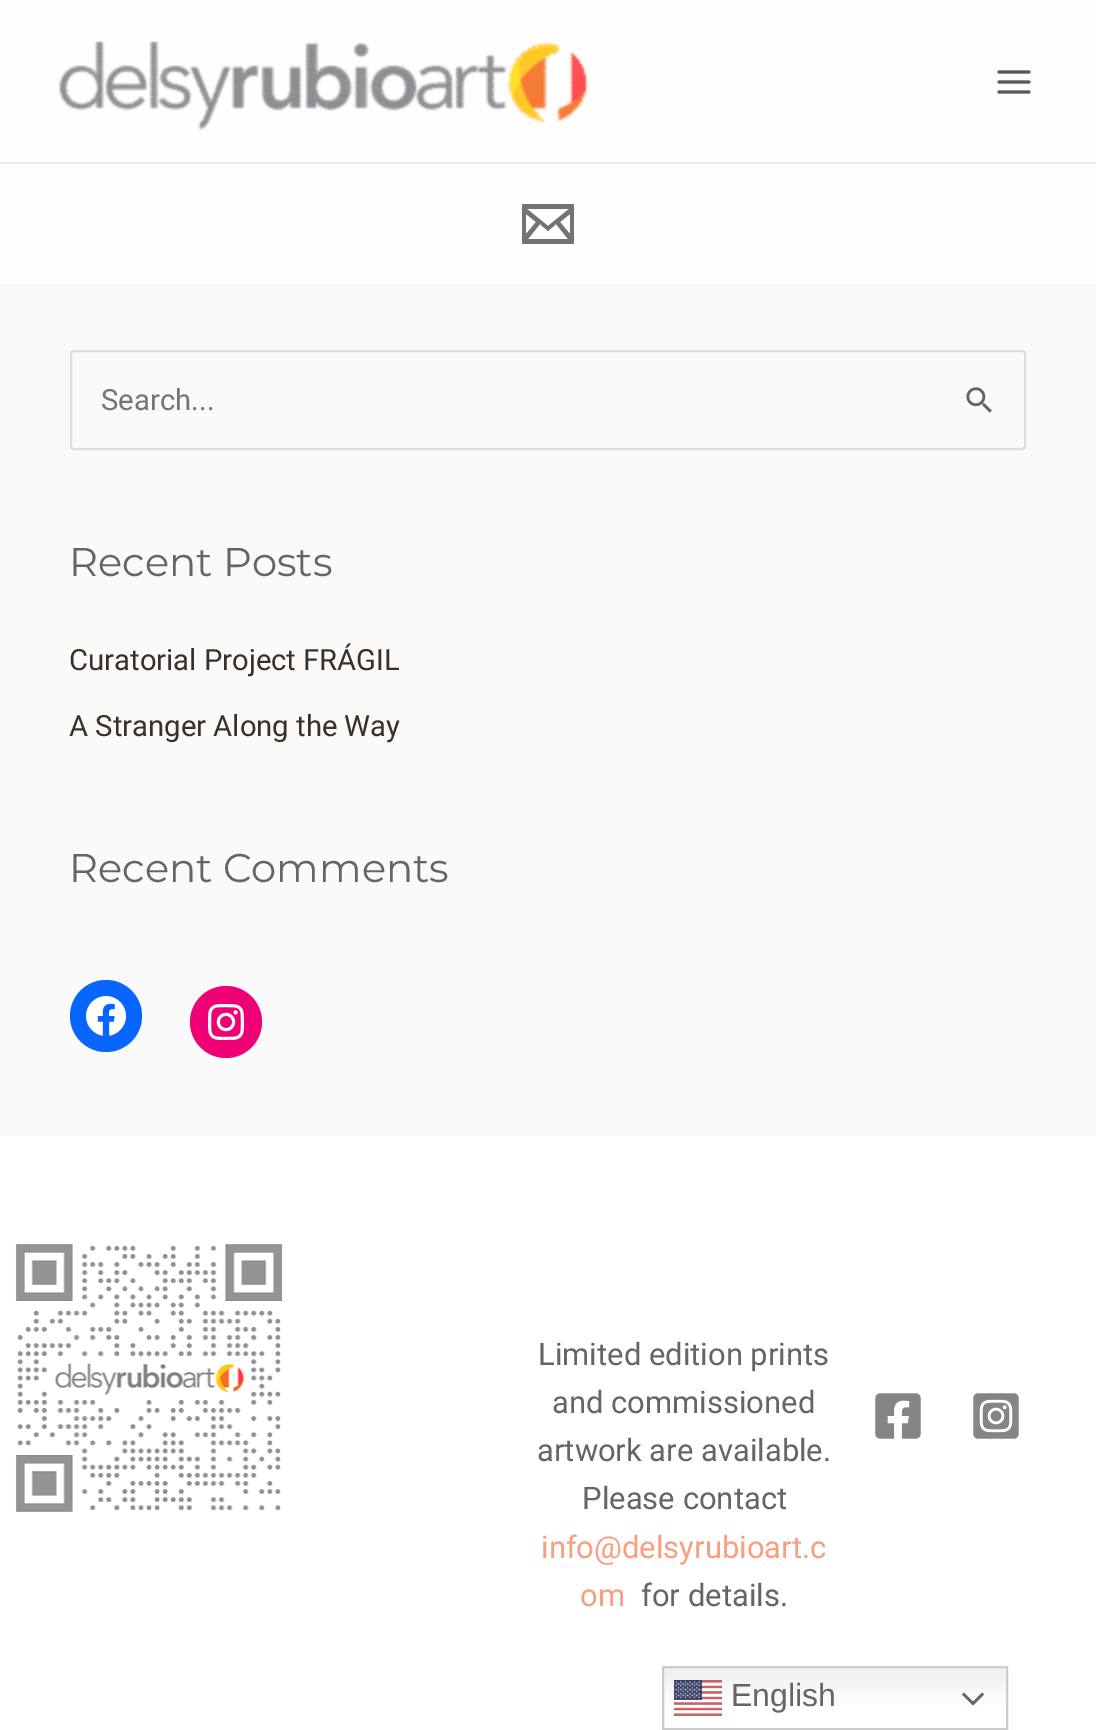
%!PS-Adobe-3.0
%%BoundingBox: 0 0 1096 1730
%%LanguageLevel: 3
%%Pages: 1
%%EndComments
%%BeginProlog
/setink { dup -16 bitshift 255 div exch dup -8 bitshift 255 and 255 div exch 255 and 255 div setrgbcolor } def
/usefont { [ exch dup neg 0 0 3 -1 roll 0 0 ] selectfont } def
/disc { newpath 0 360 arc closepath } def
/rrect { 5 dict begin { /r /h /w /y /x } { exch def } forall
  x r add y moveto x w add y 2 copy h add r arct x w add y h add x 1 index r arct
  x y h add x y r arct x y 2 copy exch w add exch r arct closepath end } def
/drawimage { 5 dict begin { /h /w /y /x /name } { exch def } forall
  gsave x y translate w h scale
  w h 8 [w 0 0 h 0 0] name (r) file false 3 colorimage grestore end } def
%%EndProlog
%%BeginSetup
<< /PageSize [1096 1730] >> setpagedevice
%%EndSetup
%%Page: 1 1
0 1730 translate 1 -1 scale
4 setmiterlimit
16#FAFAFA setink
0 0 1096 1730 rectfill
16#FEFEFD setink
0 0 1096 162 rectfill
16#E8E8E7 setink
0 162 1096 2 rectfill
(img1.raw) 58 40 531 91 drawimage
(img2.raw) 997 70 34 24 drawimage
16#FEFEFD setink
0 164 1096 120 rectfill
16#737372 setink
522 204 moveto 522 244 lineto 574 244 lineto 574 204 lineto closepath 536 222 moveto 526 234 lineto 526 214 lineto closepath 527 209 moveto 569 209 lineto 548 226 lineto closepath 540 224 moveto 548 231 lineto 556 224 lineto 568 239 lineto 528 239 lineto closepath 560 222 moveto 570 214 lineto 570 234 lineto closepath fill
16#DDDDDD setink
2 setlinewidth
71 351 954 98 3 rrect stroke
/Roboto-Regular 29.25 usefont
16#757575 setink
101 410 moveto (Search...) show
(img3.raw) 966 387 26 26 drawimage
/Montserrat-Regular 40.1 usefont
16#656565 setink
69 576 moveto (Recent Posts) show
/Roboto-Regular 29.25 usefont
16#3E2F26 setink
69 670 moveto (Curatorial Project FRÁGIL) show
69 736 moveto (A Stranger Along the Way) show
/Montserrat-Regular 40.1 usefont
16#656565 setink
69 882 moveto (Recent Comments) show
16#0866FF setink
106 1016 36 disc fill
(img4.raw) 86 996 40 40 drawimage
16#F00075 setink
226 1022 36 disc fill
(img5.raw) 208 1004 36 36 drawimage
16#FFFFFF setink
0 1136 1096 594 rectfill
(img6.raw) 15 1244 268 268 drawimage
/Roboto-Regular 31 usefont
16#656565 setink
[
    [(Limited edition prints) 538 1365]
    [(and commissioned) 552 1413]
    [(artwork are available.) 537 1461]
    [(Please contact) 582 1509]
] { aload pop moveto show } forall
16#F99E7E setink
541 1558 moveto (info@delsyrubioart.c) show
580 1606 moveto (om) show
16#656565 setink
641 1606 moveto (for details.) show
(img7.raw) 875 1393 46 46 drawimage
(img8.raw) 973 1393 46 46 drawimage
gsave 664 1668 moveto 1006 1668 lineto 1006 1704 lineto 664 1704 lineto closepath clip newpath
<< /ShadingType 2 /ColorSpace /DeviceRGB /Coords [835 1666 835 1730] /Extend [true true] /Function << /FunctionType 3 /Domain [0 1] /Functions [<< /FunctionType 2 /Domain [0 1] /C0 [0.937 0.937 0.937] /C1 [1 1 1] /N 1 >> << /FunctionType 2 /Domain [0 1] /C0 [1 1 1] /C1 [1 1 1] /N 1 >>] /Bounds [0.7] /Encode [0 1 0 1] >> >> shfill grestore
16#CCCCCC setink
663 1667 344 62 rectstroke
(img9.raw) 674 1680 48 36 drawimage
/LiberationSans-Regular 32 usefont
16#656565 setink
731 1706 moveto (English) show
(img10.raw) 962 1692 22 14 drawimage
showpage
%%EOF
